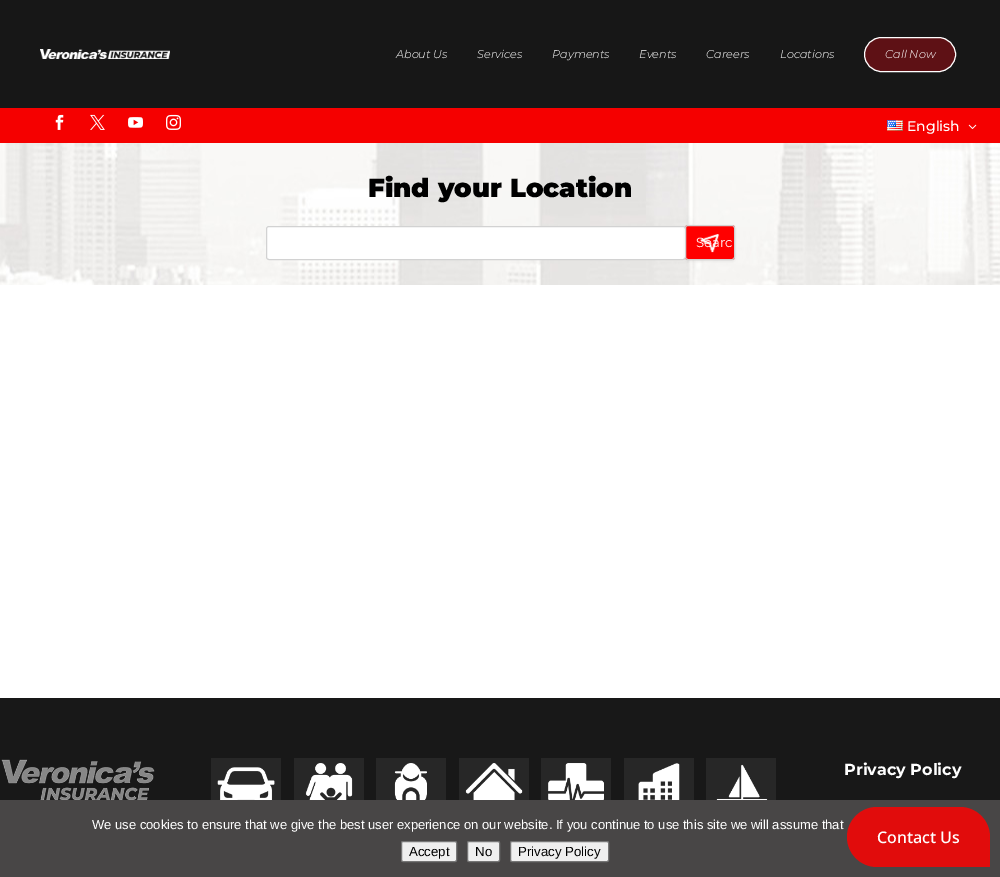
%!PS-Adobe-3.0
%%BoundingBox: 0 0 1000 877
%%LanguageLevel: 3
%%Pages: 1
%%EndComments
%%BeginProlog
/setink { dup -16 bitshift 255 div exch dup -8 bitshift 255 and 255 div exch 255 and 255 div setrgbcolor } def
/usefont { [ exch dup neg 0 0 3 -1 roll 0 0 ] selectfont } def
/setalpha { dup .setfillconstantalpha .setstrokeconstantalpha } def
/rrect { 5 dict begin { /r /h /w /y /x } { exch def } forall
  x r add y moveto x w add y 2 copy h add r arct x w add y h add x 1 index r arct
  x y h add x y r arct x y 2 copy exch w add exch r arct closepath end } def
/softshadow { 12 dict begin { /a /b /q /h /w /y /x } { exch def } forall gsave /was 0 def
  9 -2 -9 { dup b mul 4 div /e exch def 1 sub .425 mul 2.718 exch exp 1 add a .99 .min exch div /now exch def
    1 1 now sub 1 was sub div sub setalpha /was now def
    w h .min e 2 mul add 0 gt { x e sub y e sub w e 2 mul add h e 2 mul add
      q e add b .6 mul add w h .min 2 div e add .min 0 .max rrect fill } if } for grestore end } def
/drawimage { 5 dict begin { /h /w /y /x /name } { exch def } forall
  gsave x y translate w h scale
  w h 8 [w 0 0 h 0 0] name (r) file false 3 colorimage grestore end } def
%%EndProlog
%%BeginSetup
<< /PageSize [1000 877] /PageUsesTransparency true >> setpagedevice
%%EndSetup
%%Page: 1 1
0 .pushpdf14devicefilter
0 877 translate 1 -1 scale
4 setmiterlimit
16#FFFFFF setink
0 0 1000 877 rectfill
16#171717 setink
0 0 1000 108 rectfill
(img1.raw) 40 49 130 10 drawimage
/Montserrat-ThinItalic 11.25 usefont
16#FFFFFF setink
[
    [(About Us) 396 58]
    [(Services) 477 58]
    [(Payments) 552 58]
    [(Events) 639 58]
    [(Careers) 706 58]
    [(Locations) 780 58]
] { aload pop moveto show } forall
16#5E1115 setink
864.5 37.5 91 34 17 rrect gsave fill grestore
16#FFFFFF setink
stroke
885 58 moveto (Call Now) show
16#F50000 setink
0 108 1000 35 rectfill
(img2.raw) 55 114 9 16 drawimage
(img3.raw) 90 114 15 16 drawimage
(img4.raw) 128 117 15 11 drawimage
(img5.raw) 166 114 15 16 drawimage
(img6.raw) 887 120 16 11 drawimage
/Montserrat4-Thin 14 usefont
16#FFFFFF setink
907 131 moveto (English) show
(img7.raw) 968 124 9 5 drawimage
(img8.raw) 0 143 1000 142 drawimage
/Montserrat-Thin 26 usefont
16#000000 setink
368 197 moveto (Find your Location) show
16#FFFFFF setink
266.5 226.5 419 33 2.5 rrect gsave fill grestore
16#D2D2D2 setink
stroke
16#404040 setink
685 226 50 35 3 1 0.1 softshadow
16#FF0000 setink
685 225 50 35 3 rrect fill
(img9.raw) 700 234 20 19 drawimage
16#D2D2D2 setink
685.5 225.5 49 34 2.5 rrect stroke
/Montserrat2-Thin 13.25 usefont
16#FFFFFF setink
696 247 moveto (Searc) show
16#181818 setink
0 698 1000 102 rectfill
(img10.raw) 1 759 154 41 drawimage
16#272727 setink
211 758 70 42 rectfill
(img11.raw) 217 767 58 33 drawimage
294 758 70 42 rectfill
(img12.raw) 305 763 48 37 drawimage
376 758 70 42 rectfill
(img13.raw) 394 763 33 37 drawimage
459 758 70 42 rectfill
(img14.raw) 465 763 58 37 drawimage
541 758 70 42 rectfill
(img15.raw) 548 763 56 37 drawimage
624 758 70 42 rectfill
(img16.raw) 638 763 42 37 drawimage
706 758 70 42 rectfill
(img17.raw) 716 764 52 36 drawimage
/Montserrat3-Thin 16 usefont
16#FFFFFF setink
844 775 moveto (Privacy Policy) show
16#484646 setink
0 800 1000 77 rectfill
/LiberationSans-Regular 13 usefont
16#FFFFFF setink
92 829 moveto (We use cookies to ensure that we give the best user experience on our website. If you continue to use this site we will assume that) show
16#EFEFEF setink
401.5 841.5 55 20 1.5 rrect gsave fill grestore
16#767676 setink
stroke
/LiberationSans-Regular 13.25 usefont
16#000000 setink
409 856 moveto (Accept) show
16#EFEFEF setink
467.5 841.5 32 20 1.5 rrect gsave fill grestore
16#767676 setink
stroke
16#000000 setink
475 856 moveto (No) show
16#EFEFEF setink
510.5 841.5 98 20 1.5 rrect gsave fill grestore
16#767676 setink
stroke
16#000000 setink
518 856 moveto (Privacy Policy) show
16#E10C0C setink
877 807 moveto 960 807 lineto 976.5 807 990 820.5 990 837 curveto 990 867 lineto 877 867 lineto 860.5 867 847 853.5 847 837 curveto 847 820.5 860.5 807 877 807 curveto closepath fill
/NotoSans-Medium 16 usefont
16#FFFFFF setink
877 843 moveto (Contact Us) show
.poppdf14devicefilter showpage
%%EOF
